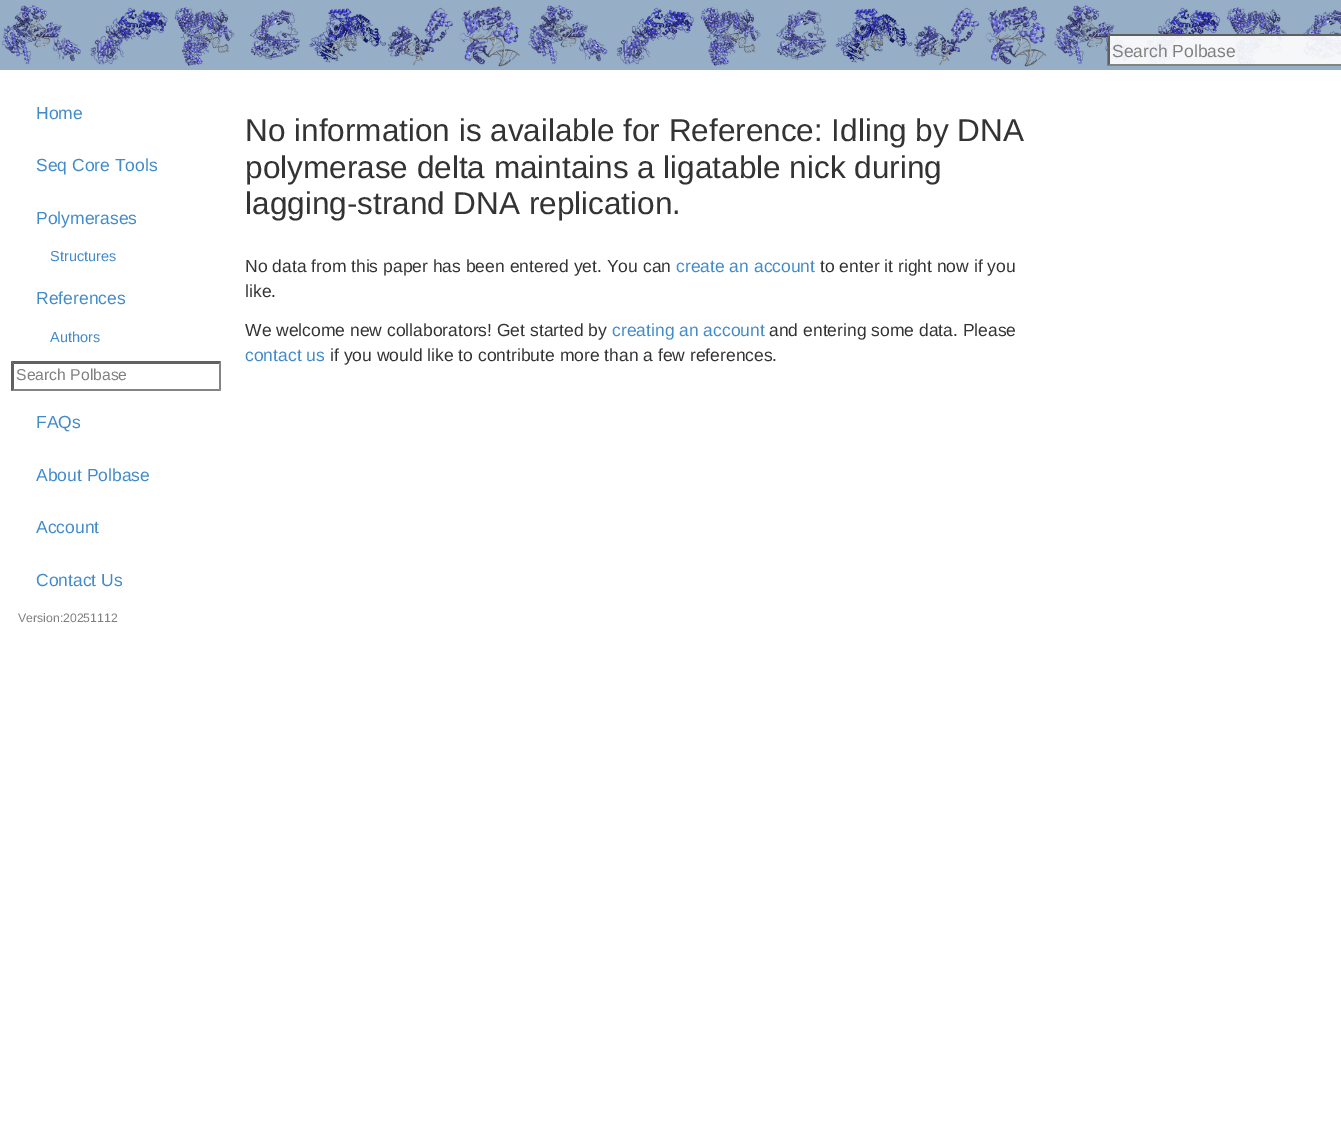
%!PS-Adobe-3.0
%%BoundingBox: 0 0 1341 1126
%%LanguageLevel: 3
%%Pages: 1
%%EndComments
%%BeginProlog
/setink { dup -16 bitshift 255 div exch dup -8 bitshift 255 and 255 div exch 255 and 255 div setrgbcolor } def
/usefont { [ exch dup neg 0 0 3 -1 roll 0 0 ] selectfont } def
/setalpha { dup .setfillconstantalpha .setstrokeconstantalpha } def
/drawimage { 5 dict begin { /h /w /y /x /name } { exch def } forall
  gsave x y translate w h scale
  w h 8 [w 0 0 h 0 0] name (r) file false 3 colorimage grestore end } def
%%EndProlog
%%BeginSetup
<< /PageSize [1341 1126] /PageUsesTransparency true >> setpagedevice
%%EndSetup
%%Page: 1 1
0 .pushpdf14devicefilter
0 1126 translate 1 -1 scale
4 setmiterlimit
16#FFFFFF setink
0 0 1341 1126 rectfill
16#96AEC6 setink
0 0 1341 70 rectfill
(img1.raw) 2 5 1339 62 drawimage
0.9 setalpha
16#FFFFFF setink
1108 34 233 32 rectfill
16#4F4F4F setink
1108 34 moveto 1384 34 lineto 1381 36 lineto 1110 36 lineto closepath fill
16#767676 setink
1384 66 moveto 1108 66 lineto 1110 64 lineto 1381 64 lineto closepath fill
16#4F4F4F setink
1107.5 66 moveto 1107.5 34 lineto 1110 36 lineto 1110 64 lineto closepath fill
/LiberationSans-Regular 17.5 usefont
1 setalpha
16#808080 setink
1112 57 moveto (Search Polbase) show
16#428BCA setink
[
    [(Home) 36 119]
    [(Seq Core Tools) 36 171]
    [(Polymerases) 36 224]
] { aload pop moveto show } forall
/LiberationSans-Regular 14.5 usefont
50 261 moveto (Structures) show
/LiberationSans-Regular 17.5 usefont
36 304 moveto (References) show
/LiberationSans-Regular 14.5 usefont
50 342 moveto (Authors) show
16#616161 setink
11 361 moveto 221 361 lineto 219 364 lineto 14 364 lineto closepath fill
16#848484 setink
221 361 moveto 221 391 lineto 219 389 lineto 219 364 lineto closepath fill
221 391 moveto 11 391 lineto 14 389 lineto 219 389 lineto closepath fill
16#616161 setink
11 391 moveto 11 361 lineto 14 364 lineto 14 389 lineto closepath fill
/LiberationSans-Regular 15.75 usefont
16#808080 setink
16 380 moveto (Search Polbase) show
/LiberationSans-Regular 17.5 usefont
16#428BCA setink
[
    [(FAQs) 36 428]
    [(About Polbase) 36 481]
    [(Account) 36 533]
    [(Contact Us) 36 586]
] { aload pop moveto show } forall
/LiberationSans-Regular 12.25 usefont
16#808080 setink
18 622 moveto (Version:20251112) show
/LiberationSans-Regular 31.5 usefont
16#333333 setink
[
    [(No information is available for Reference: Idling by DNA) 245 141]
    [(polymerase delta maintains a ligatable nick during) 245 178]
    [(lagging-strand DNA replication.) 245 214]
] { aload pop moveto show } forall
/LiberationSans-Regular 17.5 usefont
245 272 moveto (No data from this paper has been entered yet. You can) show
16#428BCA setink
676 272 moveto (create an account) show
16#333333 setink
[
    [(to enter it right now if you) 820 272]
    [(like.) 245 297]
    [(We welcome new collaborators! Get started by) 245 336]
] { aload pop moveto show } forall
16#428BCA setink
612 336 moveto (creating an account) show
16#333333 setink
769 336 moveto (and entering some data. Please) show
16#428BCA setink
245 361 moveto (contact us) show
16#333333 setink
330 361 moveto (if you would like to contribute more than a few references.) show
.poppdf14devicefilter showpage
%%EOF
